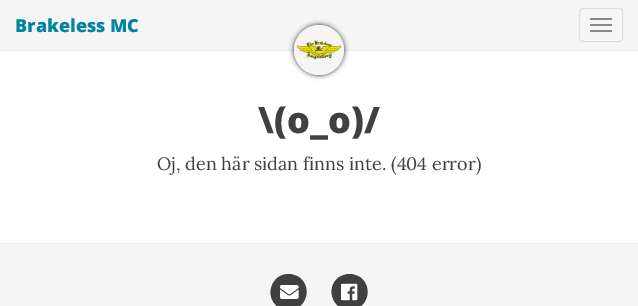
%!PS-Adobe-3.0
%%BoundingBox: 0 0 638 306
%%LanguageLevel: 3
%%Pages: 1
%%EndComments
%%BeginProlog
/setink { dup -16 bitshift 255 div exch dup -8 bitshift 255 and 255 div exch 255 and 255 div setrgbcolor } def
/usefont { [ exch dup neg 0 0 3 -1 roll 0 0 ] selectfont } def
/setalpha { dup .setfillconstantalpha .setstrokeconstantalpha } def
/rrect { 5 dict begin { /r /h /w /y /x } { exch def } forall
  x r add y moveto x w add y 2 copy h add r arct x w add y h add x 1 index r arct
  x y h add x y r arct x y 2 copy exch w add exch r arct closepath end } def
/softshadow { 12 dict begin { /a /b /q /h /w /y /x } { exch def } forall gsave /was 0 def
  9 -2 -9 { dup b mul 4 div /e exch def 1 sub .425 mul 2.718 exch exp 1 add a .99 .min exch div /now exch def
    1 1 now sub 1 was sub div sub setalpha /was now def
    w h .min e 2 mul add 0 gt { x e sub y e sub w e 2 mul add h e 2 mul add
      q e add b .6 mul add w h .min 2 div e add .min 0 .max rrect fill } if } for grestore end } def
/drawimage { 5 dict begin { /h /w /y /x /name } { exch def } forall
  gsave x y translate w h scale
  w h 8 [w 0 0 h 0 0] name (r) file false 3 colorimage grestore end } def
%%EndProlog
%%BeginSetup
<< /PageSize [638 306] /PageUsesTransparency true >> setpagedevice
%%EndSetup
%%Page: 1 1
0 .pushpdf14devicefilter
0 306 translate 1 -1 scale
4 setmiterlimit
16#FFFFFF setink
0 0 638 306 rectfill
16#F5F5F5 setink
0 0 638 50 rectfill
16#EAEAEA setink
0 50 638 1 rectfill
/OpenSans-ExtraBold 18 usefont
16#0085A1 setink
15 32 moveto (Brakeless MC) show
16#DDDDDD setink
579.5 8.5 43 33 3.5 rrect stroke
16#888888 setink
590 18 22 2 1 rrect fill
590 24 22 2 1 rrect fill
590 30 22 2 1 rrect fill
16#000000 setink
294 25 50 50 25 2.5 0.8 softshadow
(img1.raw) 294 25 50 50 drawimage
/OpenSans-ExtraBold 36 usefont
16#404040 setink
258 133 moveto (\\\(o_o\)/) show
/Lora-Regular 18 usefont
157 170 moveto (Oj, den här sidan finns inte. \(404 error\)) show
16#F5F5F5 setink
0 244 638 62 rectfill
16#EAEAEA setink
0 243 638 1 rectfill
16#404040 setink
288.5 274 moveto 271.5 274 264 296 277.5 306.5 curveto 281 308.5 284.5 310 288.5 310 curveto 306 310 313 288 299.5 277.5 curveto 296.5 275.5 292.5 274 288.5 274 curveto closepath fill
(img2.raw) 280 285 19 14 drawimage
349.5 274 moveto 345.5 274 342 275.5 338.5 277.5 curveto 325 288 332.5 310 349.5 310 curveto 367 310 374 288 360.5 277.5 curveto 357.5 275.5 353.5 274 349.5 274 curveto closepath fill
(img3.raw) 341 283 17 18 drawimage
.poppdf14devicefilter showpage
%%EOF
